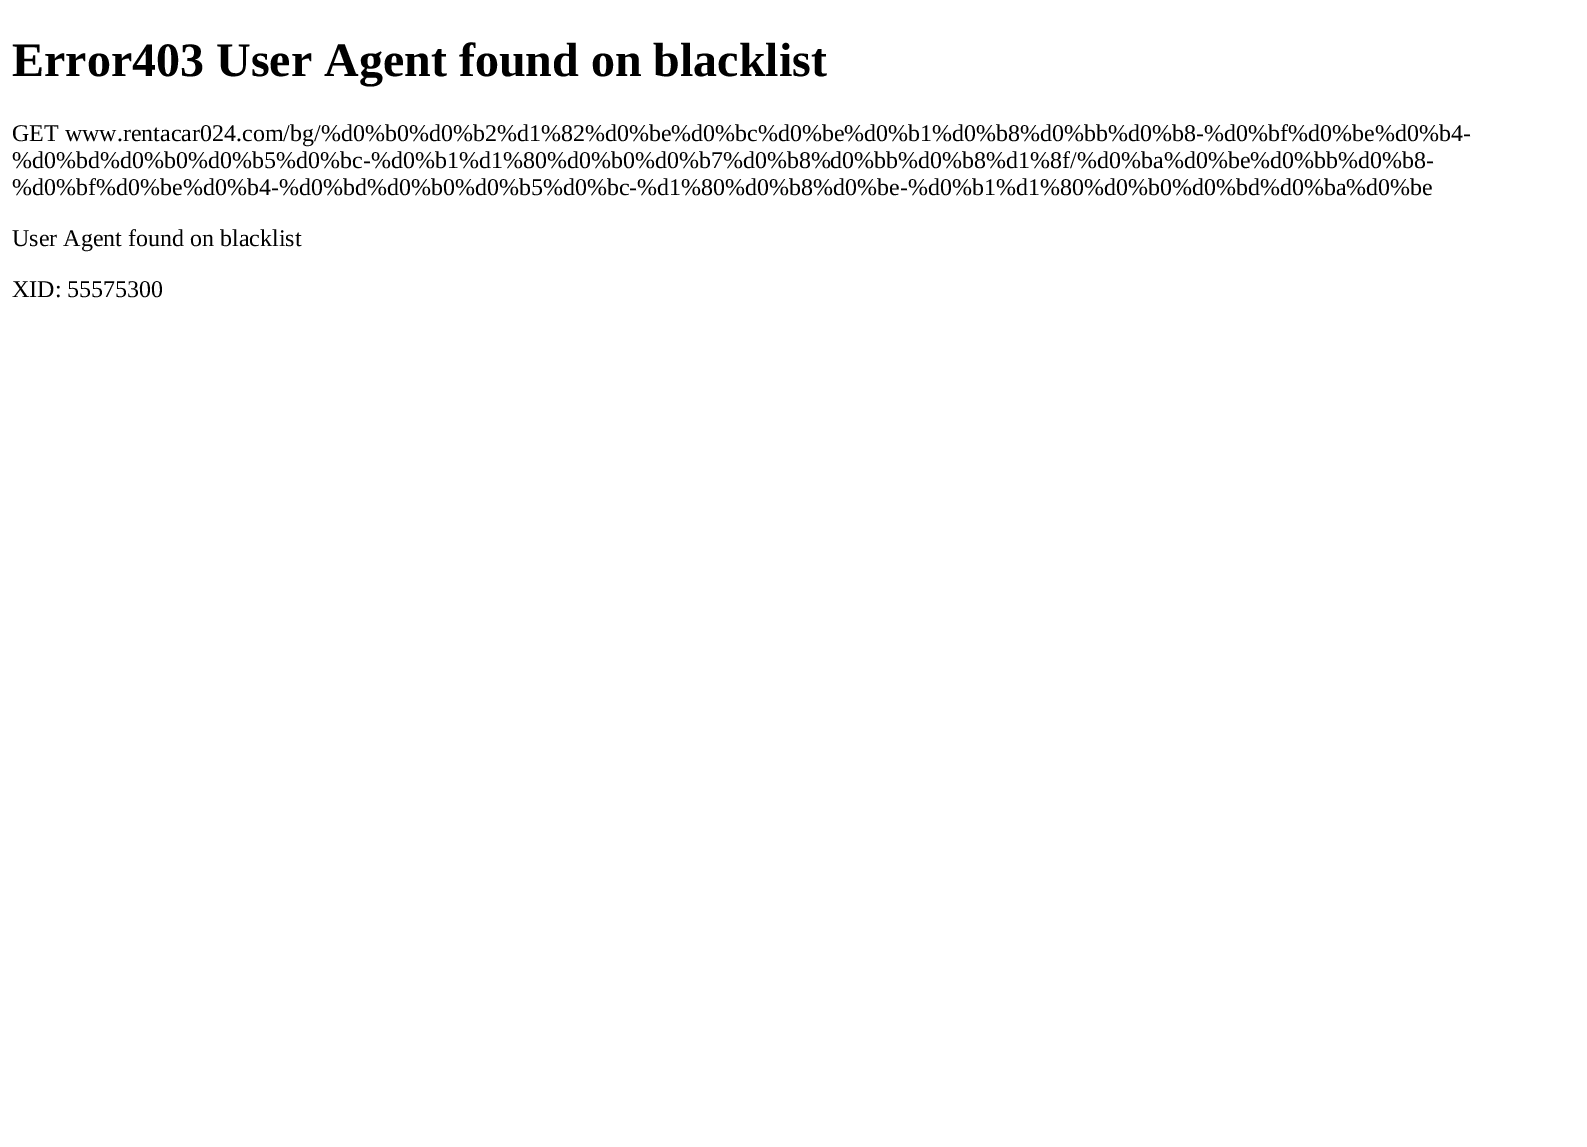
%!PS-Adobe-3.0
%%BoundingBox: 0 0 1587 1147
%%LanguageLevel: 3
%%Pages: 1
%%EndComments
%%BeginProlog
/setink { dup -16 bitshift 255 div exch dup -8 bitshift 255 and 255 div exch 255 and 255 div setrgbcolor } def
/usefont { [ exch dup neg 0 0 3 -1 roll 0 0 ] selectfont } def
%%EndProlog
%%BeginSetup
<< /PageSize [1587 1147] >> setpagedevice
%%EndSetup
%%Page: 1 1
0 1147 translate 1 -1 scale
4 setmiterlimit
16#FFFFFF setink
0 0 1587 1147 rectfill
/LiberationSerif-Bold 48 usefont
16#000000 setink
12 76 moveto (Error403 User Agent found on blacklist) show
/LiberationSerif-Regular 24 usefont
[
    [(GET www.rentacar024.com/bg/%d0%b0%d0%b2%d1%82%d0%be%d0%bc%d0%be%d0%b1%d0%b8%d0%bb%d0%b8-%d0%bf%d0%be%d0%b4-) 12 141]
    [(%d0%bd%d0%b0%d0%b5%d0%bc-%d0%b1%d1%80%d0%b0%d0%b7%d0%b8%d0%bb%d0%b8%d1%8f/%d0%ba%d0%be%d0%bb%d0%b8-) 12 168]
    [(%d0%bf%d0%be%d0%b4-%d0%bd%d0%b0%d0%b5%d0%bc-%d1%80%d0%b8%d0%be-%d0%b1%d1%80%d0%b0%d0%bd%d0%ba%d0%be) 12 195]
    [(User Agent found on blacklist) 12 246]
    [(XID: 55575300) 12 297]
] { aload pop moveto show } forall
showpage
%%EOF
